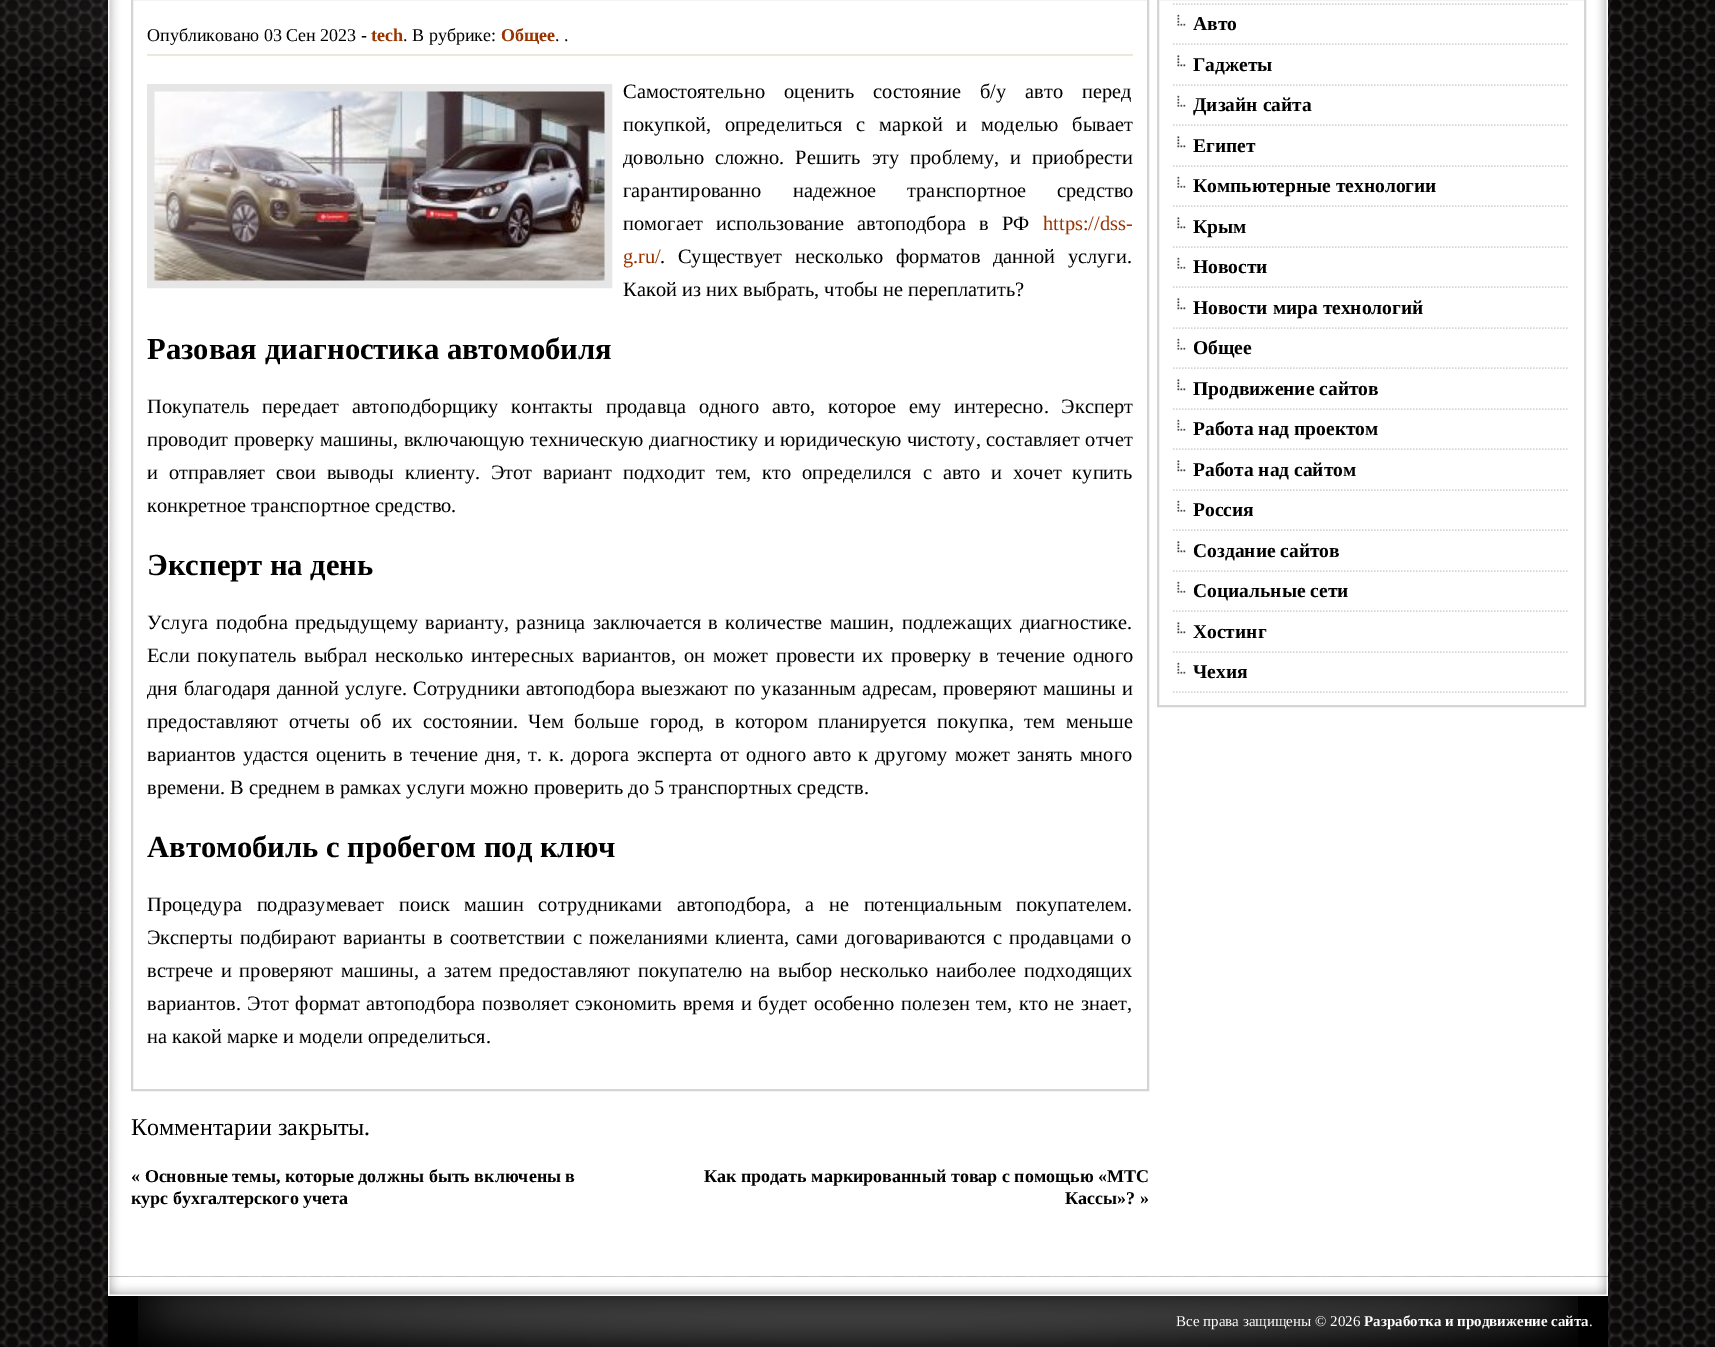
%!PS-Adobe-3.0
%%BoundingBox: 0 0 1715 1347
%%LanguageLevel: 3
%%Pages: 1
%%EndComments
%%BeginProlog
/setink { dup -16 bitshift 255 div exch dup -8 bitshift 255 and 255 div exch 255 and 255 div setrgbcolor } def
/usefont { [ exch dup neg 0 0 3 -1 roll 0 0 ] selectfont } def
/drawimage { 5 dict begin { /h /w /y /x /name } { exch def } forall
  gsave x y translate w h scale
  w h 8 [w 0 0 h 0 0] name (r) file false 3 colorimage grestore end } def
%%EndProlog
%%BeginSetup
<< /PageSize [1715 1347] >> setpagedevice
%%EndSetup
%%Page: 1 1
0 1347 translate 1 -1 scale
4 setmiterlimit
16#FFFFFF setink
0 0 1715 1347 rectfill
(img1.raw) 0 0 1715 1347 drawimage
(img2.raw) 0 0 108 67 drawimage
(img3.raw) 108 0 1500 1277 drawimage
16#D5D5D5 setink
2 setlinewidth
132 -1 1016 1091 rectstroke
16#ECE9D8 setink
147 54 986 2 rectfill
/LiberationSerif-Regular 18 usefont
16#000000 setink
147 41 moveto (Опубликовано 03 Сен 2023 -) show
/LiberationSerif-Bold 18 usefont
16#993300 setink
371 41 moveto (tech) show
/LiberationSerif-Regular 18 usefont
16#000000 setink
403 41 moveto (. В рубрике:) show
/LiberationSerif-Bold 18 usefont
16#993300 setink
501 41 moveto (Общее) show
/LiberationSerif-Regular 18 usefont
16#000000 setink
555 41 moveto (. .) show
16#E6E6E6 setink
8 setlinewidth
151 88 457 196 rectstroke
(img4.raw) 154 91 451 190 drawimage
/LiberationSerif-Regular 20.4 usefont
16#000000 setink
623 98 moveto 14 0 32 (Самостоятельно оценить состояние б/у авто перед) widthshow
623 131 moveto 8.75 0 32 (покупкой, определиться с маркой и моделью бывает) widthshow
623 164 moveto 5.75 0 32 (довольно сложно. Решить эту проблему, и приобрести) widthshow
623 197 moveto 26 0 32 (гарантированно надежное транспортное средство) widthshow
623 230 moveto 8 0 32 (помогает использование автоподбора в РФ) widthshow
16#993300 setink
1043 230 moveto (https://dss-) show
623 263 moveto (g.ru/) show
16#000000 setink
660 263 moveto 7.5 0 32 (. Существует несколько форматов данной услуги.) widthshow
623 296 moveto (Какой из них выбрать, чтобы не переплатить?) show
/LiberationSerif-Bold 30.6 usefont
147 359 moveto (Разовая диагностика автомобиля) show
/LiberationSerif-Regular 20.4 usefont
147 413 moveto 7.75 0 32 (Покупатель передает автоподборщику контакты продавца одного авто, которое ему интересно. Эксперт) widthshow
147 446 moveto 0.5 0 32 (проводит проверку машины, включающую техническую диагностику и юридическую чистоту, составляет отчет) widthshow
147 479 moveto 5.75 0 32 (и отправляет свои выводы клиенту. Этот вариант подходит тем, кто определился с авто и хочет купить) widthshow
147 512 moveto (конкретное транспортное средство.) show
/LiberationSerif-Bold 30.6 usefont
147 575 moveto (Эксперт на день) show
/LiberationSerif-Regular 20.4 usefont
147 629 moveto 2.25 0 32 (Услуга подобна предыдущему варианту, разница заключается в количестве машин, подлежащих диагностике.) widthshow
147 662 moveto 2.75 0 32 (Если покупатель выбрал несколько интересных вариантов, он может провести их проверку в течение одного) widthshow
147 695 moveto 0.9 0 32 (дня благодаря данной услуге. Сотрудники автоподбора выезжают по указанным адресам, проверяют машины и) widthshow
147 728 moveto 5.5 0 32 (предоставляют отчеты об их состоянии. Чем больше город, в котором планируется покупка, тем меньше) widthshow
147 761 moveto 2 0 32 (вариантов удастся оценить в течение дня, т. к. дорога эксперта от одного авто к другому может занять много) widthshow
147 794 moveto (времени. В среднем в рамках услуги можно проверить до 5 транспортных средств.) show
/LiberationSerif-Bold 30.6 usefont
147 857 moveto (Автомобиль с пробегом под ключ) show
/LiberationSerif-Regular 20.4 usefont
147 911 moveto 9.5 0 32 (Процедура подразумевает поиск машин сотрудниками автоподбора, а не потенциальным покупателем.) widthshow
147 944 moveto 2.25 0 32 (Эксперты подбирают варианты в соответствии с пожеланиями клиента, сами договариваются с продавцами о) widthshow
147 977 moveto 2.6 0 32 (встрече и проверяют машины, а затем предоставляют покупателю на выбор несколько наиболее подходящих) widthshow
147 1010 moveto 1.5 0 32 (вариантов. Этот формат автоподбора позволяет сэкономить время и будет особенно полезен тем, кто не знает,) widthshow
147 1043 moveto (на какой марке и модели определиться.) show
/LiberationSerif-Regular 24 usefont
131 1135 moveto (Комментарии закрыты.) show
/LiberationSerif-Bold 18 usefont
[
    [(« Основные темы, которые должны быть включены в) 131 1182]
    [(курс бухгалтерского учета) 131 1204]
    [(Как продать маркированный товар с помощью «МТС) 704 1182]
    [(Кассы»? ») 1065 1204]
] { aload pop moveto show } forall
16#D5D5D5 setink
2 setlinewidth
1158 -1 427 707 rectstroke
1.5 setlinewidth
[1.5 1.5] 0 setdash
1173 4 moveto 1569 4 lineto stroke
(img5.raw) 1177 14 9 12 drawimage
1173 44 moveto 1569 44 lineto stroke
/LiberationSerif-Bold 19.5 usefont
16#000000 setink
1193 30 moveto (Авто) show
(img6.raw) 1177 55 9 12 drawimage
16#D5D5D5 setink
1173 85 moveto 1569 85 lineto stroke
16#000000 setink
1193 71 moveto (Гаджеты) show
(img5.raw) 1177 95 9 12 drawimage
16#D5D5D5 setink
1173 125 moveto 1569 125 lineto stroke
16#000000 setink
1193 111 moveto (Дизайн сайта) show
(img6.raw) 1177 136 9 12 drawimage
16#D5D5D5 setink
1173 166 moveto 1569 166 lineto stroke
16#000000 setink
1193 152 moveto (Египет) show
(img5.raw) 1177 176 9 12 drawimage
16#D5D5D5 setink
1173 206 moveto 1569 206 lineto stroke
16#000000 setink
1193 192 moveto (Компьютерные технологии) show
(img6.raw) 1177 217 9 12 drawimage
16#D5D5D5 setink
1173 247 moveto 1569 247 lineto stroke
16#000000 setink
1193 233 moveto (Крым) show
(img5.raw) 1177 257 9 12 drawimage
16#D5D5D5 setink
1173 287 moveto 1569 287 lineto stroke
16#000000 setink
1193 273 moveto (Новости) show
(img6.raw) 1177 298 9 12 drawimage
16#D5D5D5 setink
1173 328 moveto 1569 328 lineto stroke
16#000000 setink
1193 314 moveto (Новости мира технологий) show
(img5.raw) 1177 338 9 12 drawimage
16#D5D5D5 setink
1173 368 moveto 1569 368 lineto stroke
16#000000 setink
1193 354 moveto (Общее) show
(img6.raw) 1177 379 9 12 drawimage
16#D5D5D5 setink
1173 409 moveto 1569 409 lineto stroke
16#000000 setink
1193 395 moveto (Продвижение сайтов) show
(img5.raw) 1177 419 9 12 drawimage
16#D5D5D5 setink
1173 449 moveto 1569 449 lineto stroke
16#000000 setink
1193 435 moveto (Работа над проектом) show
(img6.raw) 1177 460 9 12 drawimage
16#D5D5D5 setink
1173 490 moveto 1569 490 lineto stroke
16#000000 setink
1193 476 moveto (Работа над сайтом) show
(img5.raw) 1177 500 9 12 drawimage
16#D5D5D5 setink
1173 530 moveto 1569 530 lineto stroke
16#000000 setink
1193 516 moveto (Россия) show
(img6.raw) 1177 541 9 12 drawimage
16#D5D5D5 setink
1173 571 moveto 1569 571 lineto stroke
16#000000 setink
1193 557 moveto (Создание сайтов) show
(img5.raw) 1177 581 9 12 drawimage
16#D5D5D5 setink
1173 611 moveto 1569 611 lineto stroke
16#000000 setink
1193 597 moveto (Социальные сети) show
(img6.raw) 1177 622 9 12 drawimage
16#D5D5D5 setink
1173 652 moveto 1569 652 lineto stroke
16#000000 setink
1193 638 moveto (Хостинг) show
(img5.raw) 1177 662 9 12 drawimage
16#D5D5D5 setink
1173 692 moveto 1569 692 lineto stroke
16#000000 setink
1193 678 moveto (Чехия) show
(img7.raw) 108 1276 1500 20 drawimage
108 1296 1500 51 rectfill
(img8.raw) 138 1296 1440 51 drawimage
/LiberationSerif-Regular 15 usefont
16#FFFFFF setink
1176 1326 moveto (Все права защищены © 2026) show
/LiberationSerif-Bold 15 usefont
1364 1326 moveto (Разработка и продвижение сайта) show
/LiberationSerif-Regular 15 usefont
1589 1326 moveto (.) show
showpage
%%EOF
